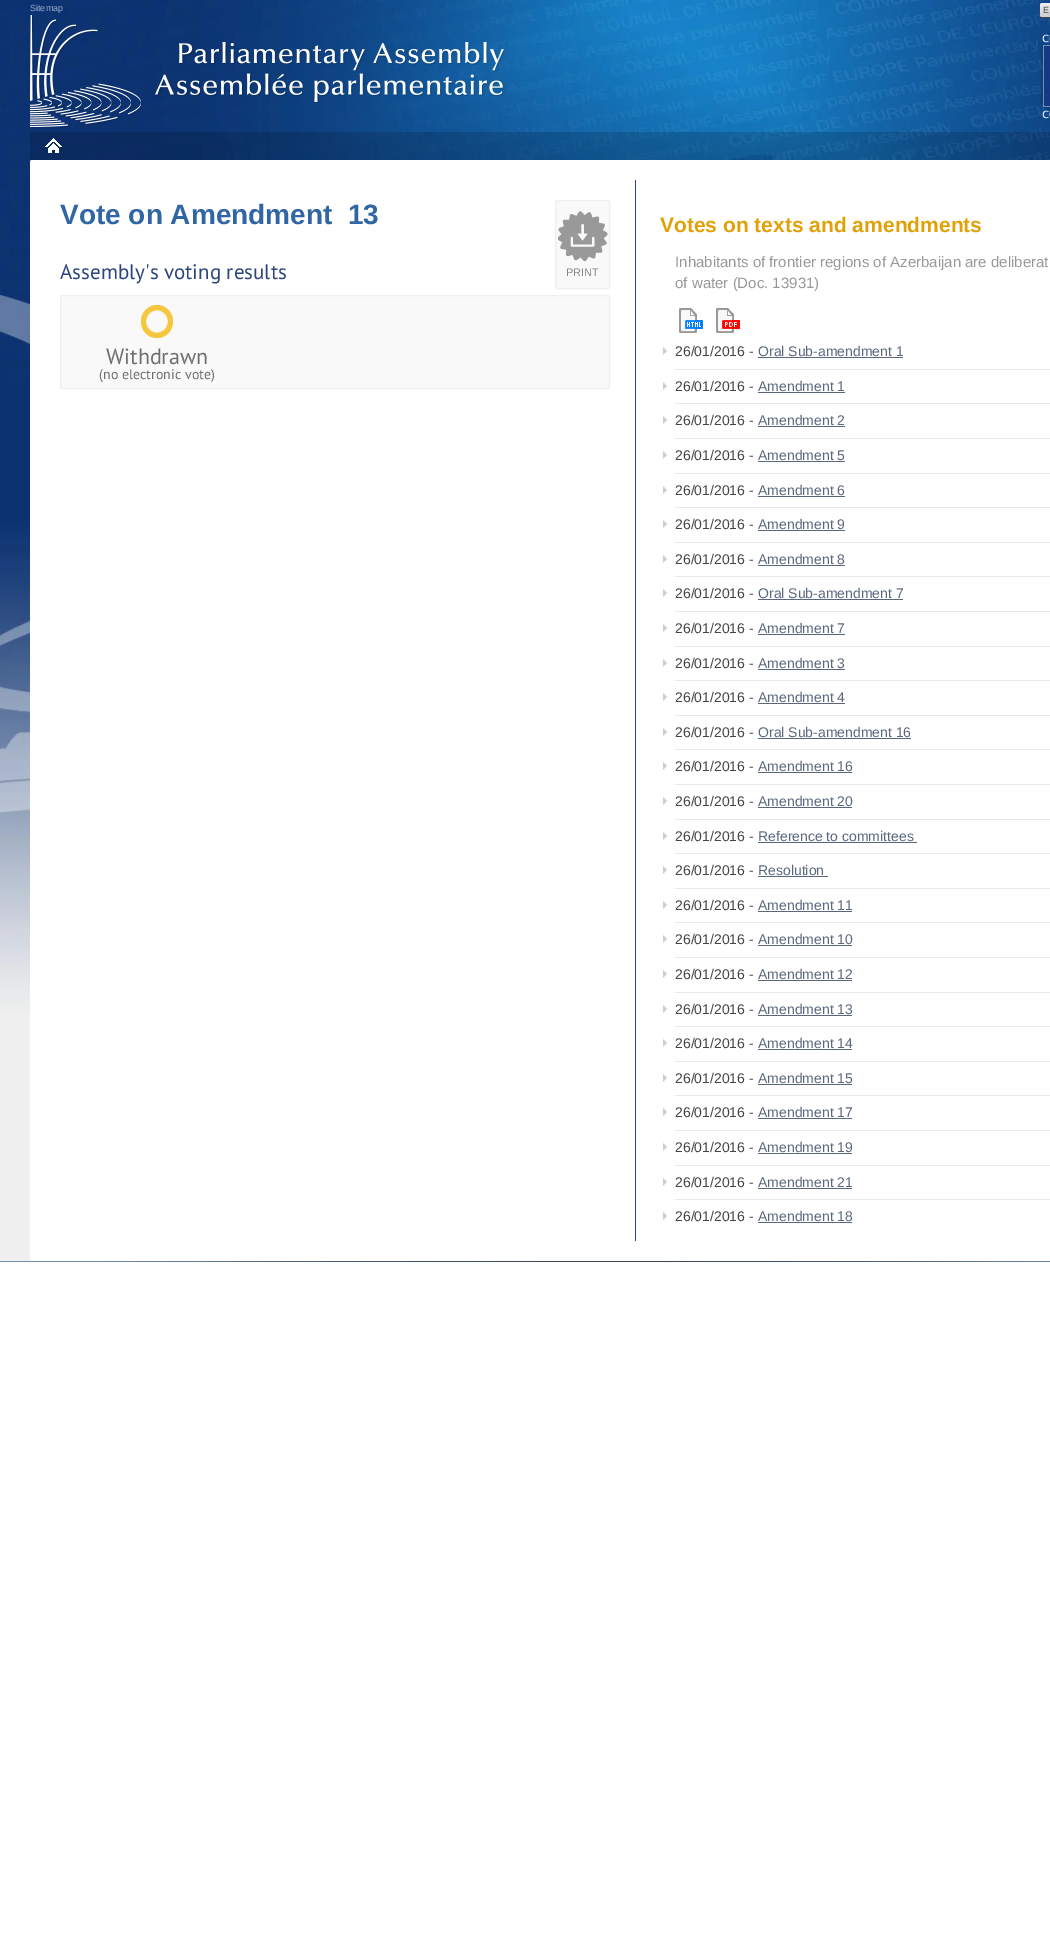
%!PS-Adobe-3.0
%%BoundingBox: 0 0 1050 1960
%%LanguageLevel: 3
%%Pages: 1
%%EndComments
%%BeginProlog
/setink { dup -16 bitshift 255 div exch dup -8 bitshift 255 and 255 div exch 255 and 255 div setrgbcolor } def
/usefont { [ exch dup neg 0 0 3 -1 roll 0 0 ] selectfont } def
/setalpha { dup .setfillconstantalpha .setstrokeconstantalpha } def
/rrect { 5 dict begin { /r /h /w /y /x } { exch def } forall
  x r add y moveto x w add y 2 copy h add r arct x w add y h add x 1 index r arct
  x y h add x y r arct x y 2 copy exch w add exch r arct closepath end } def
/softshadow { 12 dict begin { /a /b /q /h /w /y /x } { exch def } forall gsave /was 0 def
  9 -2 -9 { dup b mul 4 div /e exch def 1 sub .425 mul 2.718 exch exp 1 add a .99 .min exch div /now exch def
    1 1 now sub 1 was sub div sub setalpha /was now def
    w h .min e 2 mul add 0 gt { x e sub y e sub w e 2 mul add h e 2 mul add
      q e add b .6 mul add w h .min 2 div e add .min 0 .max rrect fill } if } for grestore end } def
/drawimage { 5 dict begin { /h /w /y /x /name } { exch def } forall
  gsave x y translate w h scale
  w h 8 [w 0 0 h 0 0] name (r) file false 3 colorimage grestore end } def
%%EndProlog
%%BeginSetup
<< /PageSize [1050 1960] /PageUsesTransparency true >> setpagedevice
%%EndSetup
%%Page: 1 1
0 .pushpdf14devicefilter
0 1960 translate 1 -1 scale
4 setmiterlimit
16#FFFFFF setink
0 0 1050 1960 rectfill
16#F0F0F0 setink
0 1013 32 248 rectfill
(img1.raw) 0 0 1050 1013 drawimage
/LiberationSans-Regular 9 usefont
16#95A8C3 setink
30 11 moveto (Sitemap) show
16#424242 setink
1040 4 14 14 2 0.5 1 softshadow
16#D2D2D2 setink
1040 3 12 14 2 rrect fill
(img2.raw) 1040 3 10 10 drawimage
16#444444 setink
1043 13 moveto (E) show
(img3.raw) 30 15 475 113 drawimage
(img4.raw) 1040 34 10 85 drawimage
0.15 setalpha
16#000000 setink
30 132 1020 28 rectfill
1 setalpha
(img5.raw) 45 138 17 15 drawimage
16#FFFFFF setink
30 160 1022 1101 2 rrect fill
16#2C467D setink
635 180 1 1061 rectfill
/LiberationSans-Bold 28 usefont
16#3166A4 setink
60 224 moveto (Vote on Amendment  13) show
/PTSans-Regular 21 usefont
16#2C467D setink
60 279 moveto (Assembly's voting results) show
16#F9F9F9 setink
555 200 55 89 3 rrect fill
(img6.raw) 558 211 50 50 drawimage
16#EEEEEE setink
555.5 200.5 54 88 2.5 rrect stroke
/LiberationSans-Regular 11 usefont
16#878787 setink
566 276 moveto (PRINT) show
16#F9F9F9 setink
60.5 295.5 549 93 1.5 rrect gsave fill grestore
16#EEEEEE setink
stroke
(img7.raw) 141 305 32 33 drawimage
/PTSans-Regular 22 usefont
16#6E6E6E setink
106 364 moveto (Withdrawn) show
/PTSans-Regular 14 usefont
99 379 moveto (\(no electronic vote\)) show
/LiberationSans-Bold 21 usefont
16#E1A106 setink
660 232 moveto (Votes on texts and amendments) show
/LiberationSans-Regular 15 usefont
16#989898 setink
675 267 moveto (Inhabitants of frontier regions of Azerbaijan are deliberat) show
675 288 moveto (of water \(Doc. 13931\)) show
(img8.raw) 679 308 24 25 drawimage
(img9.raw) 716 308 24 25 drawimage
16#EAEAEA setink
675 369 375 1 rectfill
(img10.raw) 663 346 5 9 drawimage
/LiberationSans-Regular 14 usefont
16#444444 setink
675 356 moveto (26/01/2016 -) show
16#5B677D setink
758 356 moveto (Oral Sub-amendment 1) show
758 357 145 1 rectfill
16#EAEAEA setink
675 403 375 1 rectfill
(img10.raw) 663 381 5 9 drawimage
16#444444 setink
675 391 moveto (26/01/2016 -) show
16#5B677D setink
758 391 moveto (Amendment 1) show
758 392 87 1 rectfill
16#EAEAEA setink
675 438 375 1 rectfill
(img10.raw) 663 415 5 9 drawimage
16#444444 setink
675 425 moveto (26/01/2016 -) show
16#5B677D setink
758 425 moveto (Amendment 2) show
758 426 87 1 rectfill
16#EAEAEA setink
675 473 375 1 rectfill
(img10.raw) 663 450 5 9 drawimage
16#444444 setink
675 460 moveto (26/01/2016 -) show
16#5B677D setink
758 460 moveto (Amendment 5) show
758 461 87 1 rectfill
16#EAEAEA setink
675 507 375 1 rectfill
(img10.raw) 663 485 5 9 drawimage
16#444444 setink
675 495 moveto (26/01/2016 -) show
16#5B677D setink
758 495 moveto (Amendment 6) show
758 496 87 1 rectfill
16#EAEAEA setink
675 542 375 1 rectfill
(img10.raw) 663 519 5 9 drawimage
16#444444 setink
675 529 moveto (26/01/2016 -) show
16#5B677D setink
758 529 moveto (Amendment 9) show
758 530 87 1 rectfill
16#EAEAEA setink
675 576 375 1 rectfill
(img10.raw) 663 554 5 9 drawimage
16#444444 setink
675 564 moveto (26/01/2016 -) show
16#5B677D setink
758 564 moveto (Amendment 8) show
758 565 87 1 rectfill
16#EAEAEA setink
675 611 375 1 rectfill
(img10.raw) 663 588 5 9 drawimage
16#444444 setink
675 598 moveto (26/01/2016 -) show
16#5B677D setink
758 598 moveto (Oral Sub-amendment 7) show
758 599 145 1 rectfill
16#EAEAEA setink
675 646 375 1 rectfill
(img10.raw) 663 623 5 9 drawimage
16#444444 setink
675 633 moveto (26/01/2016 -) show
16#5B677D setink
758 633 moveto (Amendment 7) show
758 634 87 1 rectfill
16#EAEAEA setink
675 680 375 1 rectfill
(img10.raw) 663 658 5 9 drawimage
16#444444 setink
675 668 moveto (26/01/2016 -) show
16#5B677D setink
758 668 moveto (Amendment 3) show
758 669 87 1 rectfill
16#EAEAEA setink
675 715 375 1 rectfill
(img10.raw) 663 692 5 9 drawimage
16#444444 setink
675 702 moveto (26/01/2016 -) show
16#5B677D setink
758 702 moveto (Amendment 4) show
758 703 87 1 rectfill
16#EAEAEA setink
675 749 375 1 rectfill
(img10.raw) 663 727 5 9 drawimage
16#444444 setink
675 737 moveto (26/01/2016 -) show
16#5B677D setink
758 737 moveto (Oral Sub-amendment 16) show
758 738 153 1 rectfill
16#EAEAEA setink
675 784 375 1 rectfill
(img10.raw) 663 761 5 9 drawimage
16#444444 setink
675 771 moveto (26/01/2016 -) show
16#5B677D setink
758 771 moveto (Amendment 16) show
758 772 94 1 rectfill
16#EAEAEA setink
675 819 375 1 rectfill
(img10.raw) 663 796 5 9 drawimage
16#444444 setink
675 806 moveto (26/01/2016 -) show
16#5B677D setink
758 806 moveto (Amendment 20) show
758 807 94 1 rectfill
16#EAEAEA setink
675 853 375 1 rectfill
(img10.raw) 663 831 5 9 drawimage
16#444444 setink
675 841 moveto (26/01/2016 -) show
16#5B677D setink
758 841 moveto (Reference to committees) show
758 842 159 1 rectfill
16#EAEAEA setink
675 888 375 1 rectfill
(img10.raw) 663 865 5 9 drawimage
16#444444 setink
675 875 moveto (26/01/2016 -) show
16#5B677D setink
758 875 moveto (Resolution) show
758 876 70 1 rectfill
16#EAEAEA setink
675 922 375 1 rectfill
(img10.raw) 663 900 5 9 drawimage
16#444444 setink
675 910 moveto (26/01/2016 -) show
16#5B677D setink
758 910 moveto (Amendment 11) show
758 911 94 1 rectfill
16#EAEAEA setink
675 957 375 1 rectfill
(img10.raw) 663 934 5 9 drawimage
16#444444 setink
675 944 moveto (26/01/2016 -) show
16#5B677D setink
758 944 moveto (Amendment 10) show
758 945 94 1 rectfill
16#EAEAEA setink
675 992 375 1 rectfill
(img10.raw) 663 969 5 9 drawimage
16#444444 setink
675 979 moveto (26/01/2016 -) show
16#5B677D setink
758 979 moveto (Amendment 12) show
758 980 94 1 rectfill
16#EAEAEA setink
675 1026 375 1 rectfill
(img10.raw) 663 1004 5 9 drawimage
16#444444 setink
675 1014 moveto (26/01/2016 -) show
16#5B677D setink
758 1014 moveto (Amendment 13) show
758 1015 94 1 rectfill
16#EAEAEA setink
675 1061 375 1 rectfill
(img10.raw) 663 1038 5 9 drawimage
16#444444 setink
675 1048 moveto (26/01/2016 -) show
16#5B677D setink
758 1048 moveto (Amendment 14) show
758 1049 94 1 rectfill
16#EAEAEA setink
675 1095 375 1 rectfill
(img10.raw) 663 1073 5 9 drawimage
16#444444 setink
675 1083 moveto (26/01/2016 -) show
16#5B677D setink
758 1083 moveto (Amendment 15) show
758 1084 94 1 rectfill
16#EAEAEA setink
675 1130 375 1 rectfill
(img10.raw) 663 1107 5 9 drawimage
16#444444 setink
675 1117 moveto (26/01/2016 -) show
16#5B677D setink
758 1117 moveto (Amendment 17) show
758 1118 94 1 rectfill
16#EAEAEA setink
675 1165 375 1 rectfill
(img10.raw) 663 1142 5 9 drawimage
16#444444 setink
675 1152 moveto (26/01/2016 -) show
16#5B677D setink
758 1152 moveto (Amendment 19) show
758 1153 94 1 rectfill
16#EAEAEA setink
675 1199 375 1 rectfill
(img10.raw) 663 1177 5 9 drawimage
16#444444 setink
675 1187 moveto (26/01/2016 -) show
16#5B677D setink
758 1187 moveto (Amendment 21) show
758 1188 94 1 rectfill
(img10.raw) 663 1211 5 9 drawimage
16#444444 setink
675 1221 moveto (26/01/2016 -) show
16#5B677D setink
758 1221 moveto (Amendment 18) show
758 1222 94 1 rectfill
16#748CAE setink
0 1261 104 1 rectfill
(img11.raw) 104 1261 946 1 drawimage
.poppdf14devicefilter showpage
%%EOF
